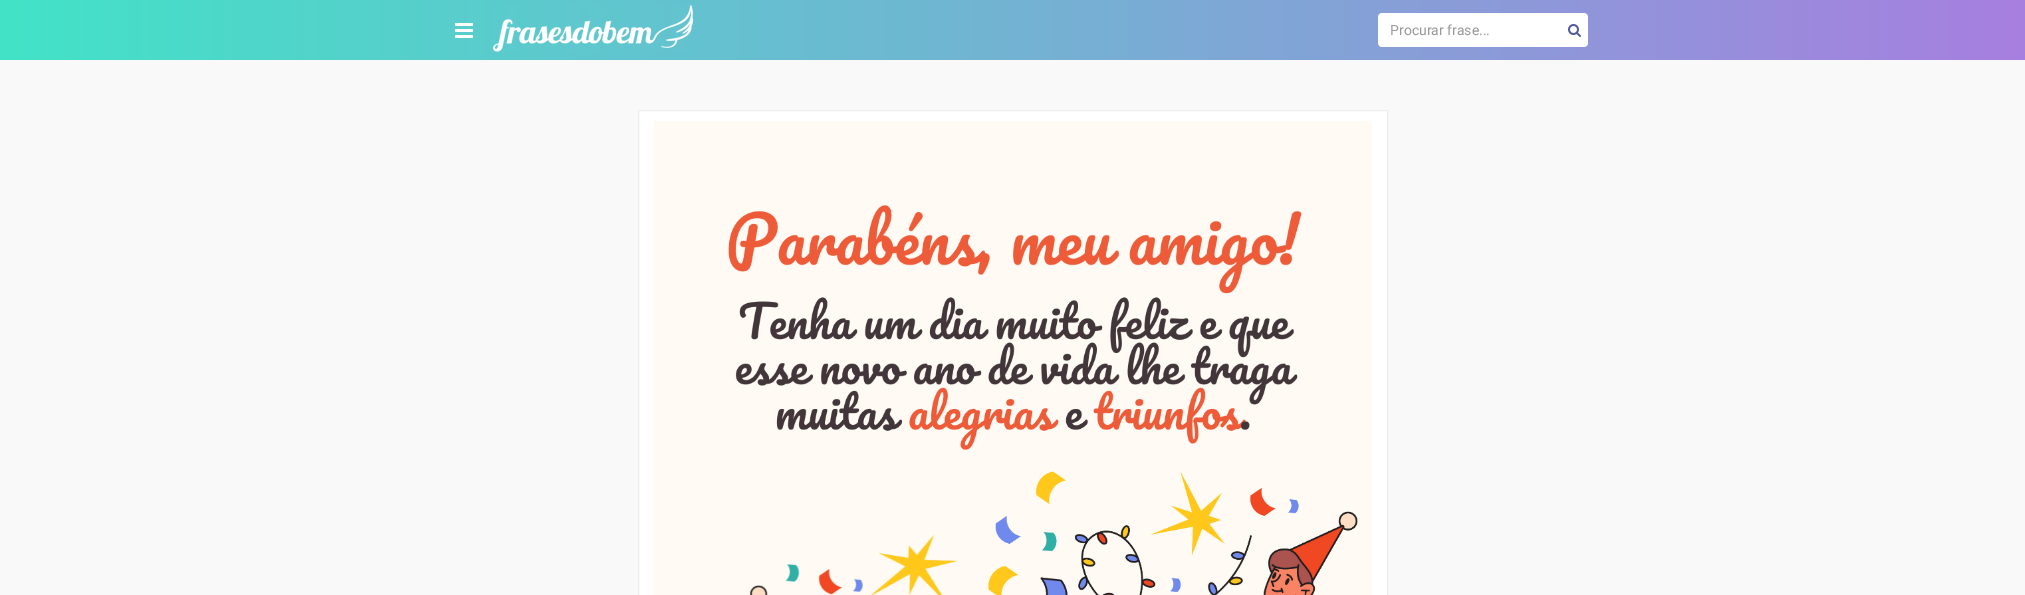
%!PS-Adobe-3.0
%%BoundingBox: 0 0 2025 595
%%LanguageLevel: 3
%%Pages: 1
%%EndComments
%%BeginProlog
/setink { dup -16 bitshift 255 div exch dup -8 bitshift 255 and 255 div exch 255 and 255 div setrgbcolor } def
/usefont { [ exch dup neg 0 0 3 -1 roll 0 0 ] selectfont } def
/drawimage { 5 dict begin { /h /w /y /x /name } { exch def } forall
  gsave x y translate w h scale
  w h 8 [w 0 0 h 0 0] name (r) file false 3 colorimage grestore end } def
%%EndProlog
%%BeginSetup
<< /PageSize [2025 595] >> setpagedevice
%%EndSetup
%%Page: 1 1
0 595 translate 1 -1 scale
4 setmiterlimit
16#F9F9F9 setink
0 0 2025 595 rectfill
gsave 0 0 moveto 2025 0 lineto 2025 60 lineto 0 60 lineto closepath clip newpath
<< /ShadingType 2 /ColorSpace /DeviceRGB /Coords [0 30 2025 30] /Extend [true true] /Function << /FunctionType 3 /Domain [0 1] /Functions [<< /FunctionType 2 /Domain [0 1] /C0 [0.259 0.89 0.78] /C1 [0.451 0.702 0.827] /N 1 >> << /FunctionType 2 /Domain [0 1] /C0 [0.451 0.702 0.827] /C1 [0.655 0.498 0.878] /N 1 >>] /Bounds [0.5] /Encode [0 1 0 1] >> >> shfill grestore
(img1.raw) 455 23 18 15 drawimage
(img2.raw) 493 5 201 47 drawimage
16#FFFFFF setink
1382 13 moveto 1562 13 lineto 1562 47 lineto 1382 47 lineto 1380 47 1378 45 1378 43 curveto 1378 17 lineto 1378 15 1380 13 1382 13 curveto closepath fill
/Roboto-Regular 14 usefont
16#999999 setink
1390 35 moveto (Procurar frase...) show
16#FFFFFF setink
1561 13 moveto 1584 13 lineto 1586 13 1588 15 1588 17 curveto 1588 43 lineto 1588 45 1586 47 1584 47 curveto 1561 47 lineto closepath fill
(img3.raw) 1568 24 13 13 drawimage
638.5 110.5 moveto 1387.5 110.5 lineto 1387.5 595.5 lineto 638.5 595.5 lineto closepath gsave fill grestore
16#EEEEEE setink
stroke
(img4.raw) 654 121 718 474 drawimage
showpage
%%EOF
